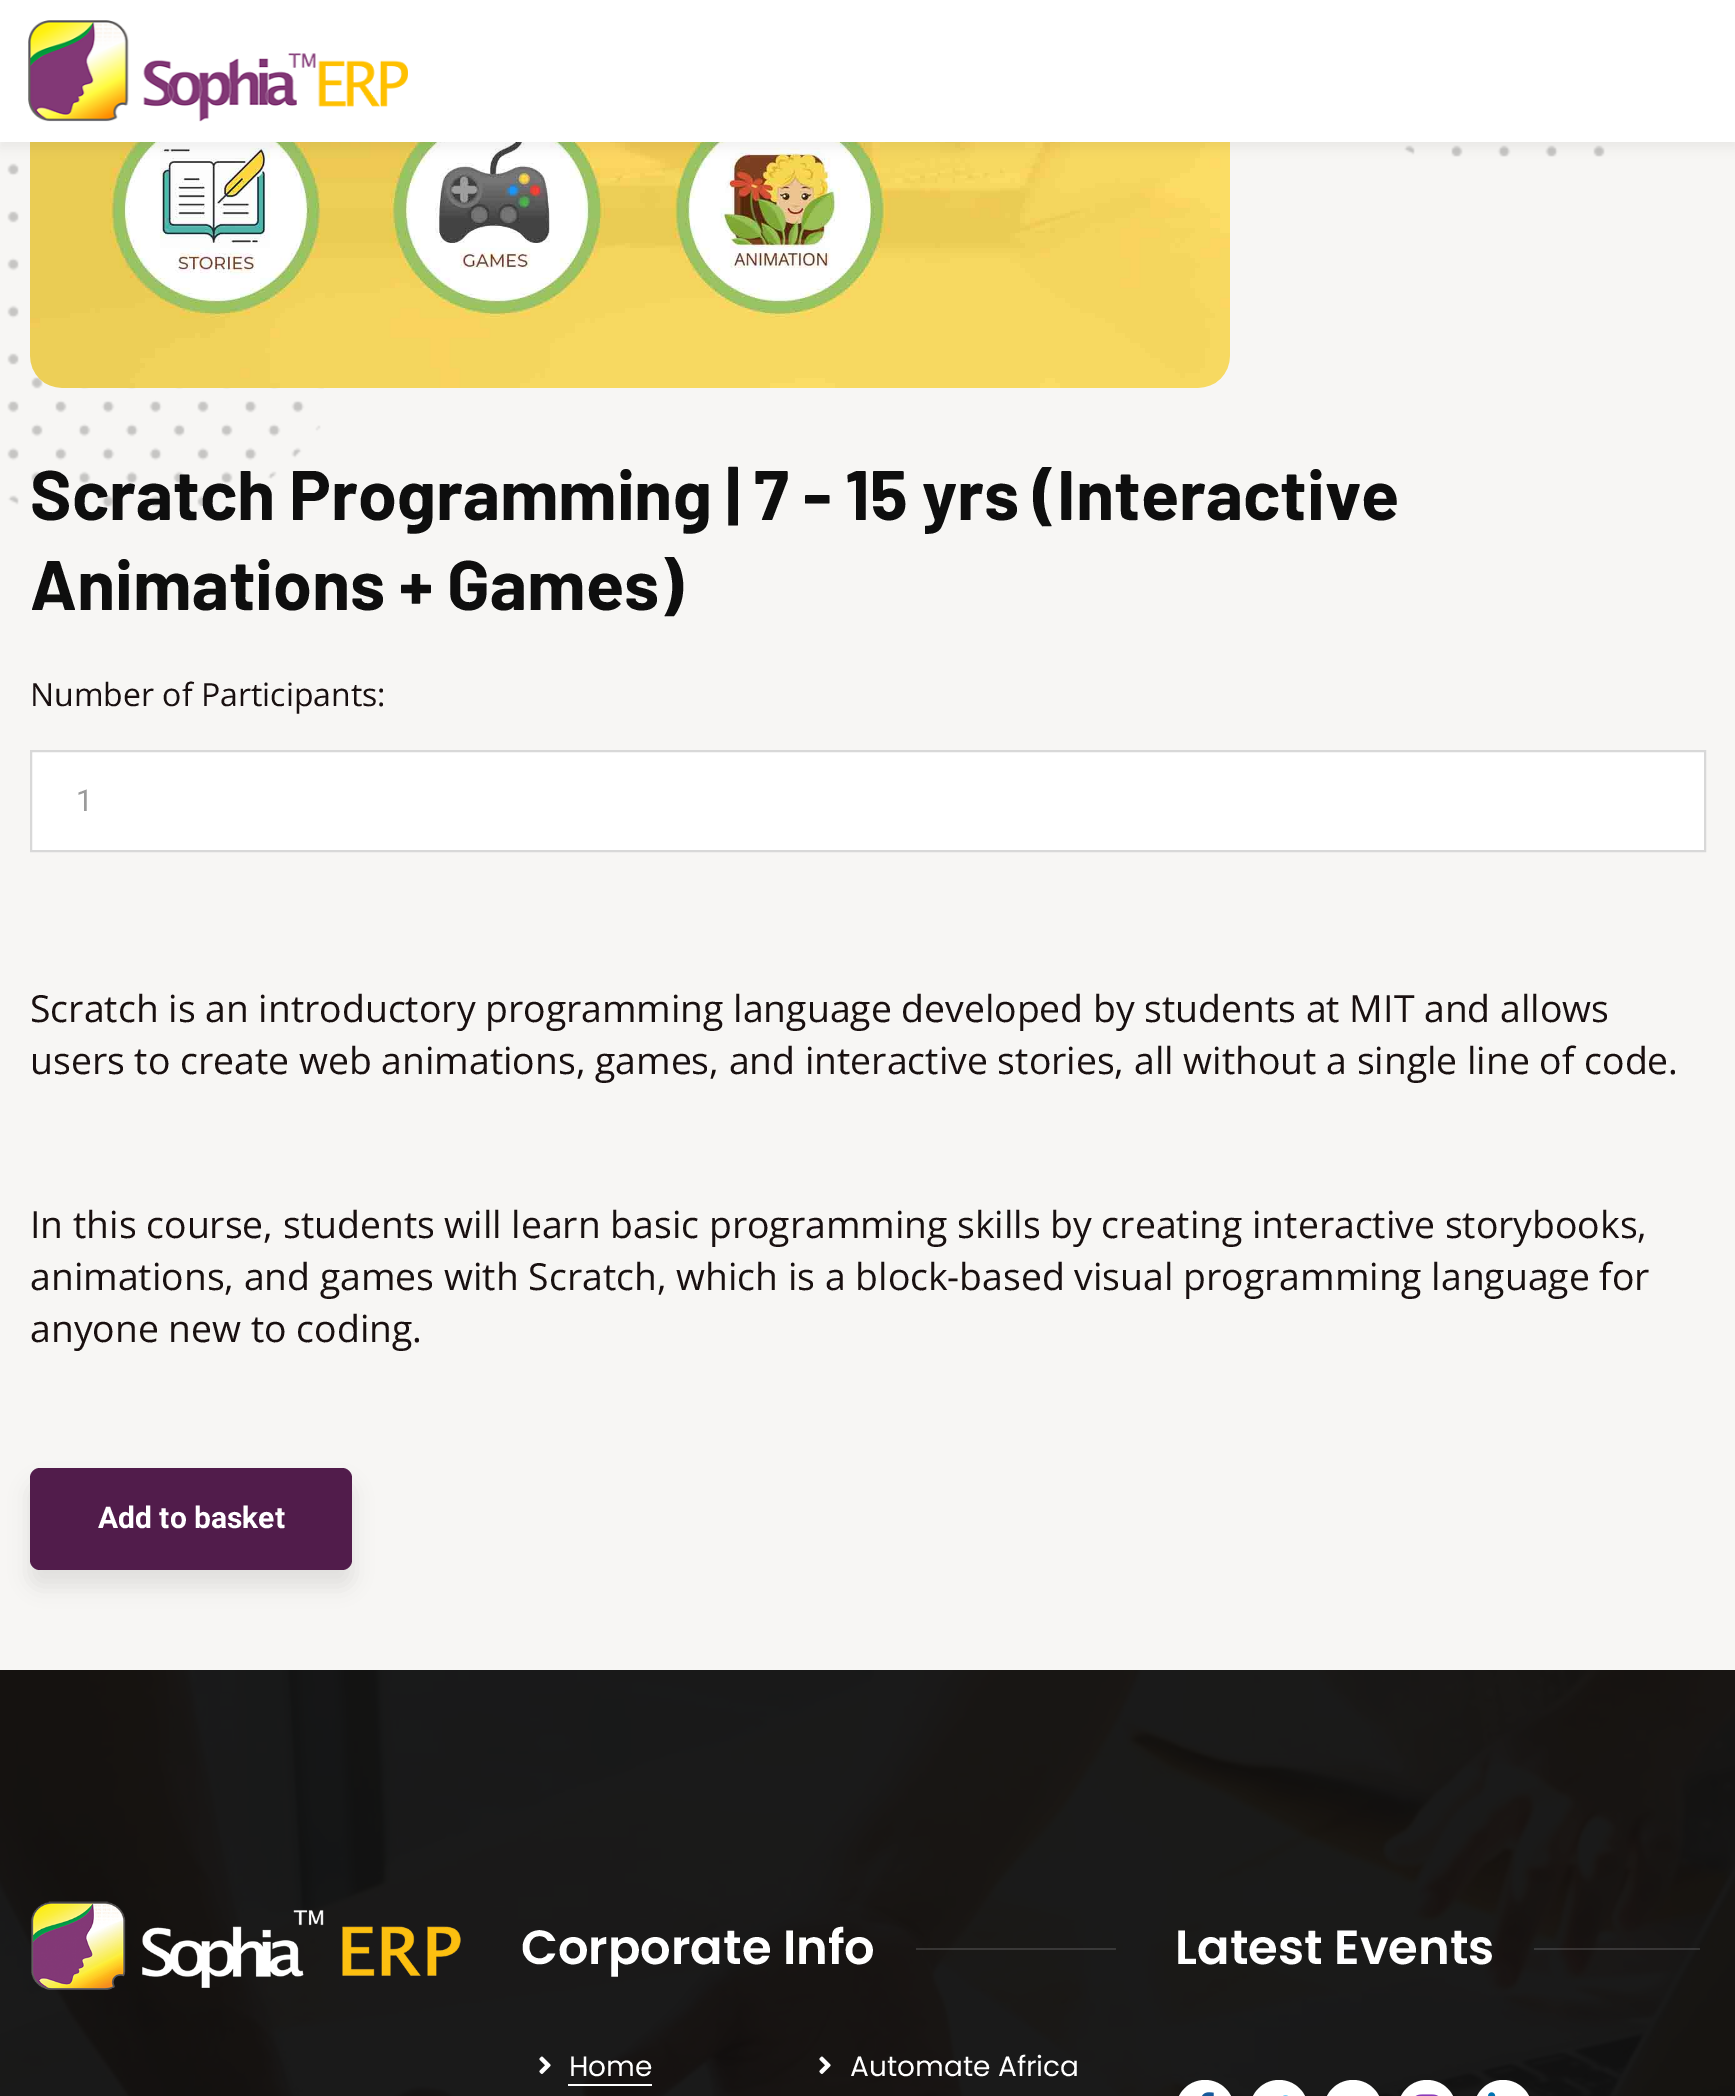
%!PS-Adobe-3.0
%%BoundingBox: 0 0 1735 2096
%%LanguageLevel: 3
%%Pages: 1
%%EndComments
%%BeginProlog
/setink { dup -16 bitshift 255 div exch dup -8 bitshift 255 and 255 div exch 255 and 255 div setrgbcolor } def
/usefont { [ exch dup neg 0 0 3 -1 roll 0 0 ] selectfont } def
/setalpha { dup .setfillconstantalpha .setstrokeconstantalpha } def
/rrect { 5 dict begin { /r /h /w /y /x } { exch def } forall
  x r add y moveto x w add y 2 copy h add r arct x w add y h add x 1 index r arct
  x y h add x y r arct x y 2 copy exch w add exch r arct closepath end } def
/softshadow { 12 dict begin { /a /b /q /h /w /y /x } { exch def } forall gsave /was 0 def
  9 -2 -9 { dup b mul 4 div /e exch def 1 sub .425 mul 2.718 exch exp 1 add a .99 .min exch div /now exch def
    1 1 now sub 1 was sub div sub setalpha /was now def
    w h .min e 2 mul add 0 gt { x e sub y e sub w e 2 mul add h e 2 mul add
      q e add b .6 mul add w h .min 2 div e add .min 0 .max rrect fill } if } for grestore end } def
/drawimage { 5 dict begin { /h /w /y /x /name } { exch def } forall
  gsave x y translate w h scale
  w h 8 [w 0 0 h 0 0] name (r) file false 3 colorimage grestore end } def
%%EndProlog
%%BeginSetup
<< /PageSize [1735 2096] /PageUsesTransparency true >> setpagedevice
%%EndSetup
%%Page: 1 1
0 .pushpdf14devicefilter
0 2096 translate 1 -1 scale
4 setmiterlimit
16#F7F6F4 setink
0 0 1735 2096 rectfill
(img4.raw) 7 163 317 344 drawimage
(img2.raw) 30 142 1200 246 drawimage
(img3.raw) 1404 145 201 12 drawimage
16#000000 setink
0 6 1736 142 0 6 0.05 softshadow
16#FFFFFF setink
0 0 1735 142 rectfill
(img1.raw) 28 20 380 102 drawimage
/Barlow-Bold 70 usefont
16#0E0E0E setink
30 520 moveto (Scratch Programming | 7 - 15 yrs \(Interactive) show
30 610 moveto (Animations + Games\)) show
/OpenSans-Regular 32 usefont
16#191010 setink
30 706 moveto (Number of Participants:) show
16#FFFFFF setink
31 751 moveto 1705 751 lineto 1705 851 lineto 31 851 lineto closepath gsave fill grestore
16#D8D8D8 setink
2 setlinewidth
stroke
/Roboto-Regular 30 usefont
16#9B9B9B setink
76 811 moveto (1) show
/OpenSans-Regular 37.35 usefont
16#191010 setink
[
    [(Scratch is an introductory programming language developed by students at MIT and allows) 30 1022]
    [(users to create web animations, games, and interactive stories, all without a single line of code.) 30 1074]
    [(In this course, students will learn basic programming skills by creating interactive storybooks,) 30 1238]
    [(animations, and games with Scratch, which is a block-based visual programming language for) 30 1290]
    [(anyone new to coding.) 30 1342]
] { aload pop moveto show } forall
16#0C0C0C setink
30 1484 322 102 10 10 0.1 softshadow
16#511C4B setink
30 1468 322 102 10 rrect fill
/Roboto-Bold 30 usefont
16#FFFFFF setink
98 1528 moveto (Add to basket) show
(img5.raw) 0 1670 1735 426 drawimage
(img6.raw) 31 1901 430 89 drawimage
/Poppins-SemiBold 48 usefont
521 1964 moveto (Corporate Info) show
0.15 setalpha
16#E9EAEE setink
916 1948 200 2 rectfill
1 setalpha
(img7.raw) 539 2056 12 18 drawimage
/Poppins-Regular 28 usefont
16#FFFFFF setink
569 2076 moveto (Home) show
568 2084 84 2 rectfill
(img8.raw) 819 2056 12 18 drawimage
850 2076 moveto (Automate Africa) show
/Poppins-SemiBold 48 usefont
1175 1964 moveto (Latest Events) show
0.15 setalpha
16#E9EAEE setink
1534 1948 166 2 rectfill
1 setalpha
16#FFFFFF setink
1176 2080 58 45 29 rrect fill
(img9.raw) 1202 2092 12 4 drawimage
1250 2080 58 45 29 rrect fill
(img10.raw) 1283 2095 5 1 drawimage
1324 2080 58 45 29 rrect fill
1398 2080 58 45 29 rrect fill
(img11.raw) 1415 2094 24 2 drawimage
1474 2080 58 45 29 rrect fill
(img12.raw) 1488 2092 8 4 drawimage
.poppdf14devicefilter showpage
%%EOF
